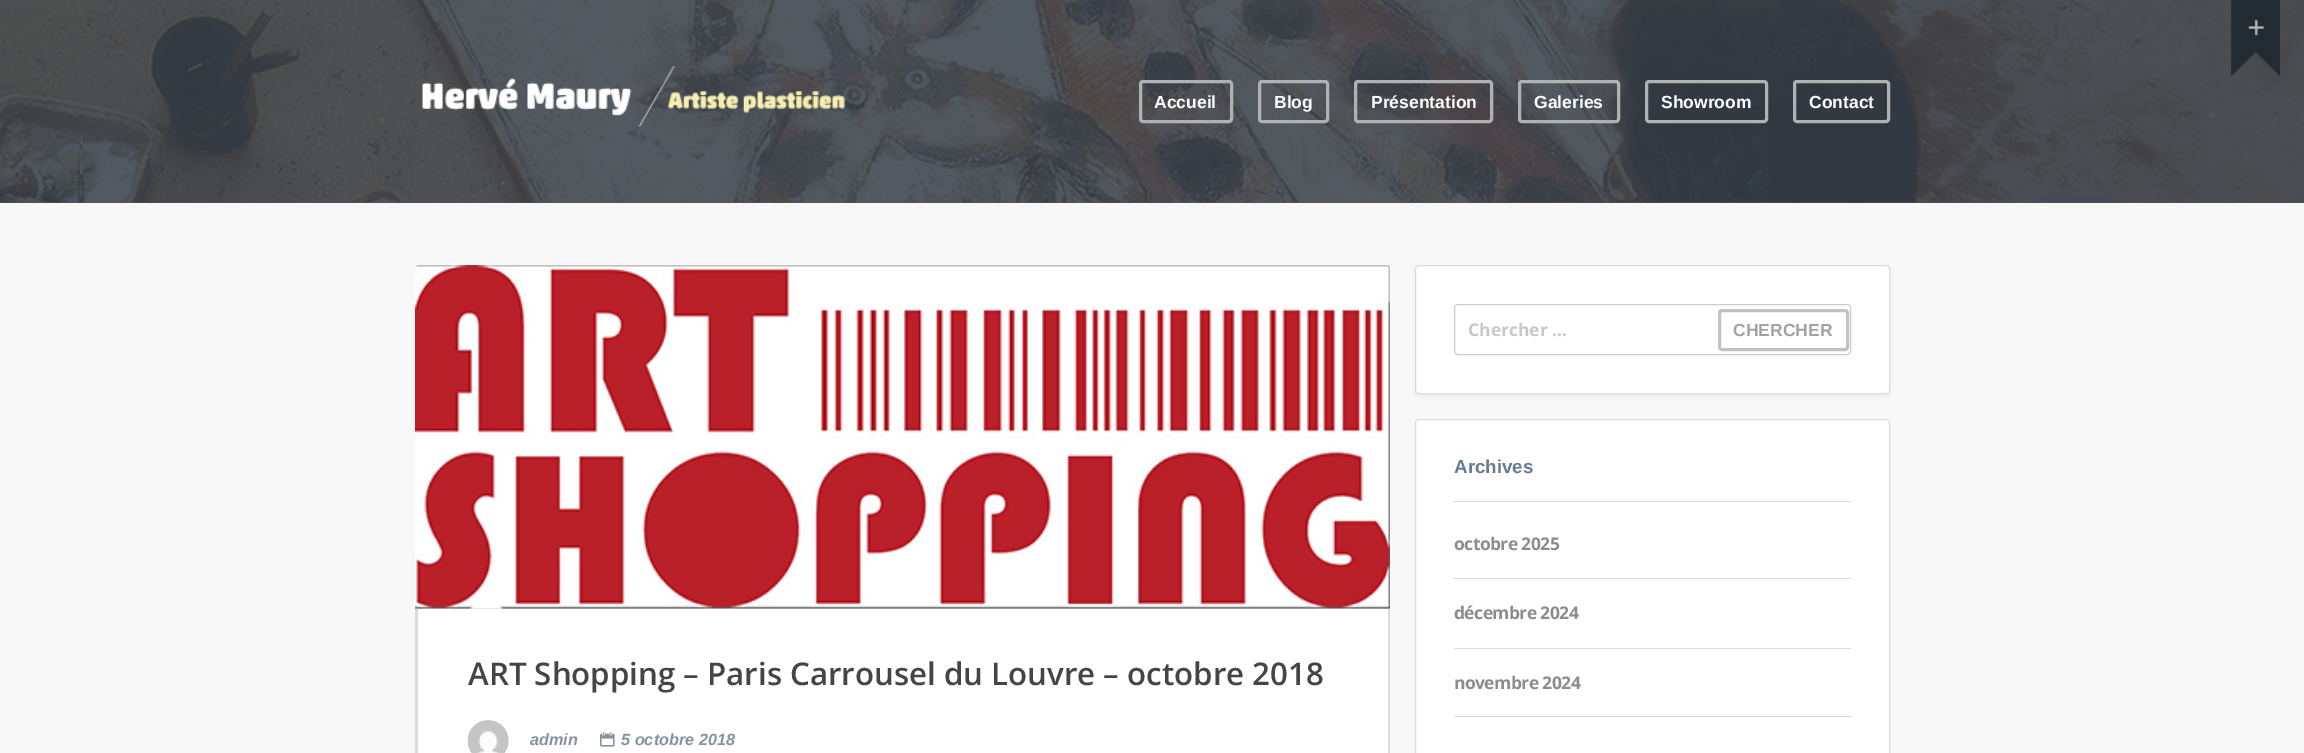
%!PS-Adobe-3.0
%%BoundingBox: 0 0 2304 753
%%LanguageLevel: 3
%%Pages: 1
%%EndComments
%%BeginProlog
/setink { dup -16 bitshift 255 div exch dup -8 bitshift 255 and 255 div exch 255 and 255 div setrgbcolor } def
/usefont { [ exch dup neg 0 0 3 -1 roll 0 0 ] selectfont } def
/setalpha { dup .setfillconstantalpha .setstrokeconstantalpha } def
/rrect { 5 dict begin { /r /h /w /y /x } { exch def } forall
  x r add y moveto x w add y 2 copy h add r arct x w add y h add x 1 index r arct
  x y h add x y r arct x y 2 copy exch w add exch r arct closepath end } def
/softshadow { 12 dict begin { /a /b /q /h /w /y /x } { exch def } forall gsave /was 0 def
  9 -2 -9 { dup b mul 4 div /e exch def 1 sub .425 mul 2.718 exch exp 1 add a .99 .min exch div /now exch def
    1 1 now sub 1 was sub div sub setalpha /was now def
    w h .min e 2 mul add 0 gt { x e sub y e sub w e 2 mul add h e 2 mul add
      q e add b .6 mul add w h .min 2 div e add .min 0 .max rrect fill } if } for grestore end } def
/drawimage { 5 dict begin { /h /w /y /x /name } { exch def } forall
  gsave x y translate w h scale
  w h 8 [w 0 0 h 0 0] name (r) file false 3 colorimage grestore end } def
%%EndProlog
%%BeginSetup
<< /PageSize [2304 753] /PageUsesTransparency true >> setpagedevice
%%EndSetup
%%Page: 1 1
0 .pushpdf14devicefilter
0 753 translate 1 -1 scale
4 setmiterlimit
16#F8F8F8 setink
0 0 2304 753 rectfill
16#515961 setink
0 202 2304 1 rectfill
(img3.raw) 0 0 2304 203 drawimage
(img1.raw) 2231 0 49 76 drawimage
(img2.raw) 2231 0 49 77 drawimage
(img4.raw) 422 66 424 61 drawimage
16#B0B1B3 setink
3 setlinewidth
1140.5 81.5 91 40 2.5 rrect stroke
/Arimo-Bold 17.5 usefont
16#FFFFFF setink
1154 108 moveto (Accueil) show
16#B0B1B3 setink
1259.5 81.5 68 40 2.5 rrect stroke
16#FFFFFF setink
1274 108 moveto (Blog) show
16#B0B1B3 setink
1355.5 81.5 136 40 2.5 rrect stroke
16#FFFFFF setink
1371 108 moveto (Présentation) show
16#B0B1B3 setink
1519.5 81.5 99 40 2.5 rrect stroke
16#FFFFFF setink
1534 108 moveto (Galeries) show
16#B0B1B3 setink
1646.5 81.5 120 40 2.5 rrect stroke
16#FFFFFF setink
1661 108 moveto (Showroom) show
16#B0B1B3 setink
1794.5 81.5 94 40 2.5 rrect stroke
16#FFFFFF setink
1809 108 moveto (Contact) show
16#000000 setink
1415 268 475 128 0 2 0.05 softshadow
16#FFFFFF setink
1415.5 265.5 474 128 3.5 rrect gsave fill grestore
16#DBDBDB setink
1 setlinewidth
stroke
16#CCCCCC setink
1454.5 304.5 396 50 3.5 rrect stroke
/OpenSans-Bold 17.5 usefont
16#C7C7C7 setink
1468 336 moveto (Chercher …) show
16#C2C2C2 setink
3 setlinewidth
1719.5 310.5 128 39 2.5 rrect stroke
/Arimo-Bold 17.5 usefont
16#A2A2A2 setink
1733 336 moveto (CHERCHER) show
16#FFFFFF setink
1415.5 419.5 474 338 3.5 rrect gsave fill grestore
16#DBDBDB setink
1 setlinewidth
stroke
16#D9D9D9 setink
1454 501 397 1 rectfill
/Arimo-Bold 18.75 usefont
16#667B90 setink
1454 473 moveto (Archives) show
16#D9D9D9 setink
1454 578 397 1 rectfill
/OpenSans-Bold 17.5 usefont
16#8C8C8C setink
1454 550 moveto -0.6 0 (octobre 2025) ashow
16#D9D9D9 setink
1454 648 397 1 rectfill
16#8C8C8C setink
1454 619 moveto -0.6 0 (décembre 2024) ashow
16#D9D9D9 setink
1454 716 397 1 rectfill
16#8C8C8C setink
1454 689 moveto -0.6 0 (novembre 2024) ashow
(img5.raw) 415 265 975 344 drawimage
(img6.raw) 470 605 33 4 drawimage
16#FFFFFF setink
418 609 970 144 rectfill
16#DBDBDB setink
415 609 moveto 1390 609 lineto 1390 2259 lineto 1390 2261 1388 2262 1386 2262 curveto 419 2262 lineto 417 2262 415 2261 415 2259 curveto closepath 418 609 moveto 1388 609 lineto 1388 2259 lineto 1388 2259 1387 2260 1386 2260 curveto 419 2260 lineto 418 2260 418 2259 418 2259 curveto closepath eofill
/OpenSans-SemiBold 31.25 usefont
16#454545 setink
468 685 moveto (ART Shopping – Paris Carrousel du Louvre – octobre 2018) show
(img7.raw) 467 720 42 33 drawimage
/Arimo-BoldItalic 16.25 usefont
16#86929E setink
530 745 moveto (admin) show
(img8.raw) 600 732 15 15 drawimage
621 745 moveto (5 octobre 2018) show
.poppdf14devicefilter showpage
%%EOF
